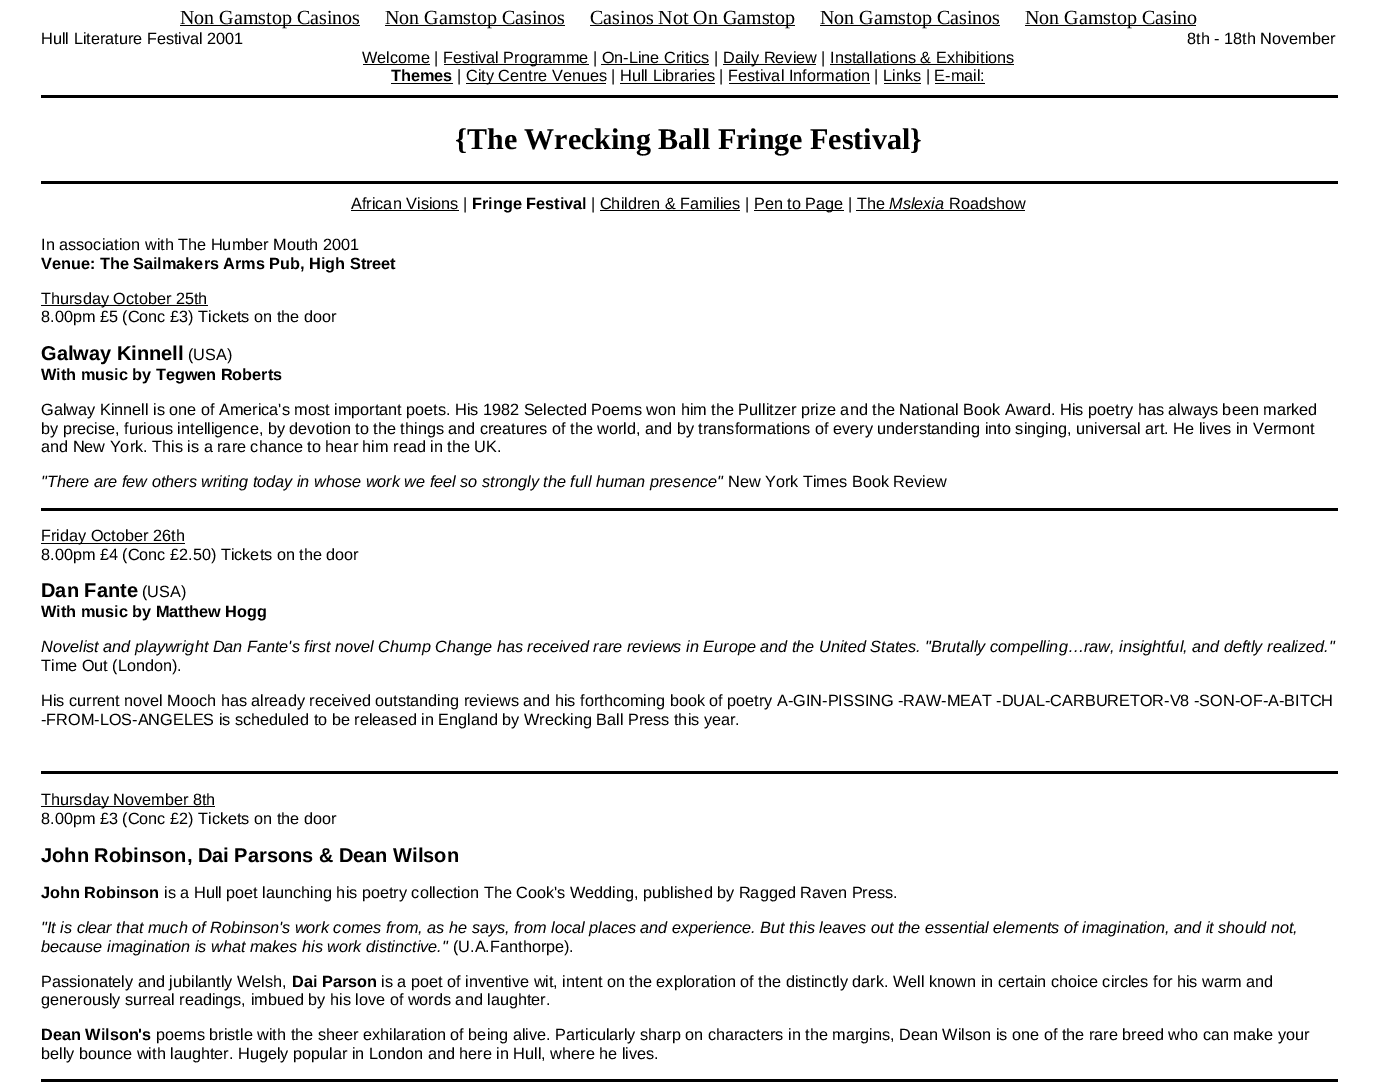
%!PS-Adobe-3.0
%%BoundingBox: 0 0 1376 1088
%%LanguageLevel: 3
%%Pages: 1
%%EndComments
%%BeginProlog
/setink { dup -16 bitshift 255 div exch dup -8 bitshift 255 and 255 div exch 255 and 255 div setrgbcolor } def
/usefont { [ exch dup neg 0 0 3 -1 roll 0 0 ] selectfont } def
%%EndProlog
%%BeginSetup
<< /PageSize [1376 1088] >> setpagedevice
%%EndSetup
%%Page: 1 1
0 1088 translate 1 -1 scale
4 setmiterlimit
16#FFFFFF setink
0 0 1376 1088 rectfill
16#000000 setink
180 25 180 1 rectfill
/LiberationSerif-Regular 20 usefont
180 24 moveto (Non Gamstop Casinos) show
385 25 180 1 rectfill
385 24 moveto (Non Gamstop Casinos) show
590 25 205 1 rectfill
590 24 moveto (Casinos Not On Gamstop) show
820 25 180 1 rectfill
820 24 moveto (Non Gamstop Casinos) show
1025 25 171 1 rectfill
1025 24 moveto (Non Gamstop Casino) show
/LiberationSans-Regular 16.25 usefont
41 44 moveto (Hull Literature Festival 2001) show
1187 44 moveto (8th - 18th November) show
363 64 67 1 rectfill
362 63 moveto (Welcome |) show
444 64 145 1 rectfill
443 63 moveto (Festival Programme | On-Line Critics |) show
601 64 108 1 rectfill
723 64 93 1 rectfill
723 63 moveto (Daily Review | Installations & Exhibitions) show
830 64 184 1 rectfill
/LiberationSans-Bold 16.25 usefont
391 81 moveto (Themes) show
391 83 62 1 rectfill
/LiberationSans-Regular 16.25 usefont
457 81 moveto (|) show
466 83 140 1 rectfill
466 81 moveto (City Centre Venues | Hull Libraries | Festival Information | Links | E-mail:) show
[
    [620 83 95 1 16#000000]
    [729 83 141 1 16#000000]
    [884 83 37 1 16#000000]
    [935 83 50 1 16#000000]
    [41 95 1297 3 16#000000]
] { aload pop setink rectfill } forall
/LiberationSerif-Bold 30 usefont
455 149 moveto ({The Wrecking Ball Fringe Festival}) show
41 181 1297 3 rectfill
351 210 108 1 rectfill
/LiberationSans-Regular 16.25 usefont
351 209 moveto (African Visions |) show
/LiberationSans-Bold 16.25 usefont
472 209 moveto (Fringe Festival) show
/LiberationSans-Regular 16.25 usefont
591 209 moveto (| Children & Families |) show
600 210 140 1 rectfill
754 210 90 1 rectfill
754 209 moveto (Pen to Page | The) show
856 210 169 1 rectfill
/LiberationSans-Italic 16.25 usefont
889 209 moveto (Mslexia) show
/LiberationSans-Regular 16.25 usefont
949 209 moveto (Roadshow) show
41 250 moveto (In association with The Humber Mouth 2001) show
/LiberationSans-Bold 16.25 usefont
41 269 moveto (Venue: The Sailmakers Arms Pub, High Street) show
41 305 167 1 rectfill
/LiberationSans-Regular 16.25 usefont
41 304 moveto (Thursday October 25th) show
41 322 moveto (8.00pm £5 \(Conc £3\) Tickets on the door) show
/LiberationSans-Bold 20 usefont
41 360 moveto (Galway Kinnell) show
/LiberationSans-Regular 16.25 usefont
188 360 moveto (\(USA\)) show
/LiberationSans-Bold 16.25 usefont
41 380 moveto (With music by Tegwen Roberts) show
/LiberationSans-Regular 16.25 usefont
[
    [(Galway Kinnell is one of America's most important poets. His 1982 Selected Poems won him the Pullitzer prize and the National Book Award. His poetry has always been marked) 41 415]
    [(by precise, furious intelligence, by devotion to the things and creatures of the world, and by transformations of every understanding into singing, universal art. He lives in Vermont) 41 434]
    [(and New York. This is a rare chance to hear him read in the UK.) 41 452]
] { aload pop moveto show } forall
/LiberationSans-Italic 16.25 usefont
41 487 moveto ("There are few others writing today in whose work we feel so strongly the full human presence") show
/LiberationSans-Regular 16.25 usefont
728 487 moveto (New York Times Book Review) show
41 508 1297 3 rectfill
41 543 144 1 rectfill
41 541 moveto (Friday October 26th) show
41 560 moveto (8.00pm £4 \(Conc £2.50\) Tickets on the door) show
/LiberationSans-Bold 20 usefont
41 597 moveto (Dan Fante) show
/LiberationSans-Regular 16.25 usefont
142 597 moveto (\(USA\)) show
/LiberationSans-Bold 16.25 usefont
41 617 moveto (With music by Matthew Hogg) show
/LiberationSans-Italic 16.25 usefont
41 652 moveto (Novelist and playwright Dan Fante's first novel Chump Change has received rare reviews in Europe and the United States. "Brutally compelling…raw, insightful, and deftly realized.") show
/LiberationSans-Regular 16.25 usefont
[
    [(Time Out \(London\).) 41 671]
    [(His current novel Mooch has already received outstanding reviews and his forthcoming book of poetry A-GIN-PISSING -RAW-MEAT -DUAL-CARBURETOR-V8 -SON-OF-A-BITCH) 41 706]
    [(-FROM-LOS-ANGELES is scheduled to be released in England by Wrecking Ball Press this year.) 41 725]
] { aload pop moveto show } forall
41 771 1297 3 rectfill
41 806 174 1 rectfill
41 805 moveto (Thursday November 8th) show
41 824 moveto (8.00pm £3 \(Conc £2\) Tickets on the door) show
/LiberationSans-Bold 20 usefont
41 862 moveto (John Robinson, Dai Parsons & Dean Wilson) show
/LiberationSans-Bold 16.25 usefont
41 898 moveto (John Robinson) show
/LiberationSans-Regular 16.25 usefont
164 898 moveto (is a Hull poet launching his poetry collection The Cook's Wedding, published by Ragged Raven Press.) show
/LiberationSans-Italic 16.25 usefont
41 933 moveto ("It is clear that much of Robinson's work comes from, as he says, from local places and experience. But this leaves out the essential elements of imagination, and it should not,) show
41 952 moveto (because imagination is what makes his work distinctive.") show
/LiberationSans-Regular 16.25 usefont
453 952 moveto (\(U.A.Fanthorpe\).) show
41 987 moveto (Passionately and jubilantly Welsh,) show
/LiberationSans-Bold 16.25 usefont
292 987 moveto (Dai Parson) show
/LiberationSans-Regular 16.25 usefont
381 987 moveto (is a poet of inventive wit, intent on the exploration of the distinctly dark. Well known in certain choice circles for his warm and) show
41 1005 moveto (generously surreal readings, imbued by his love of words and laughter.) show
/LiberationSans-Bold 16.25 usefont
41 1040 moveto (Dean Wilson's) show
/LiberationSans-Regular 16.25 usefont
156 1040 moveto (poems bristle with the sheer exhilaration of being alive. Particularly sharp on characters in the margins, Dean Wilson is one of the rare breed who can make your) show
41 1059 moveto (belly bounce with laughter. Hugely popular in London and here in Hull, where he lives.) show
41 1079 1297 3 rectfill
showpage
%%EOF
